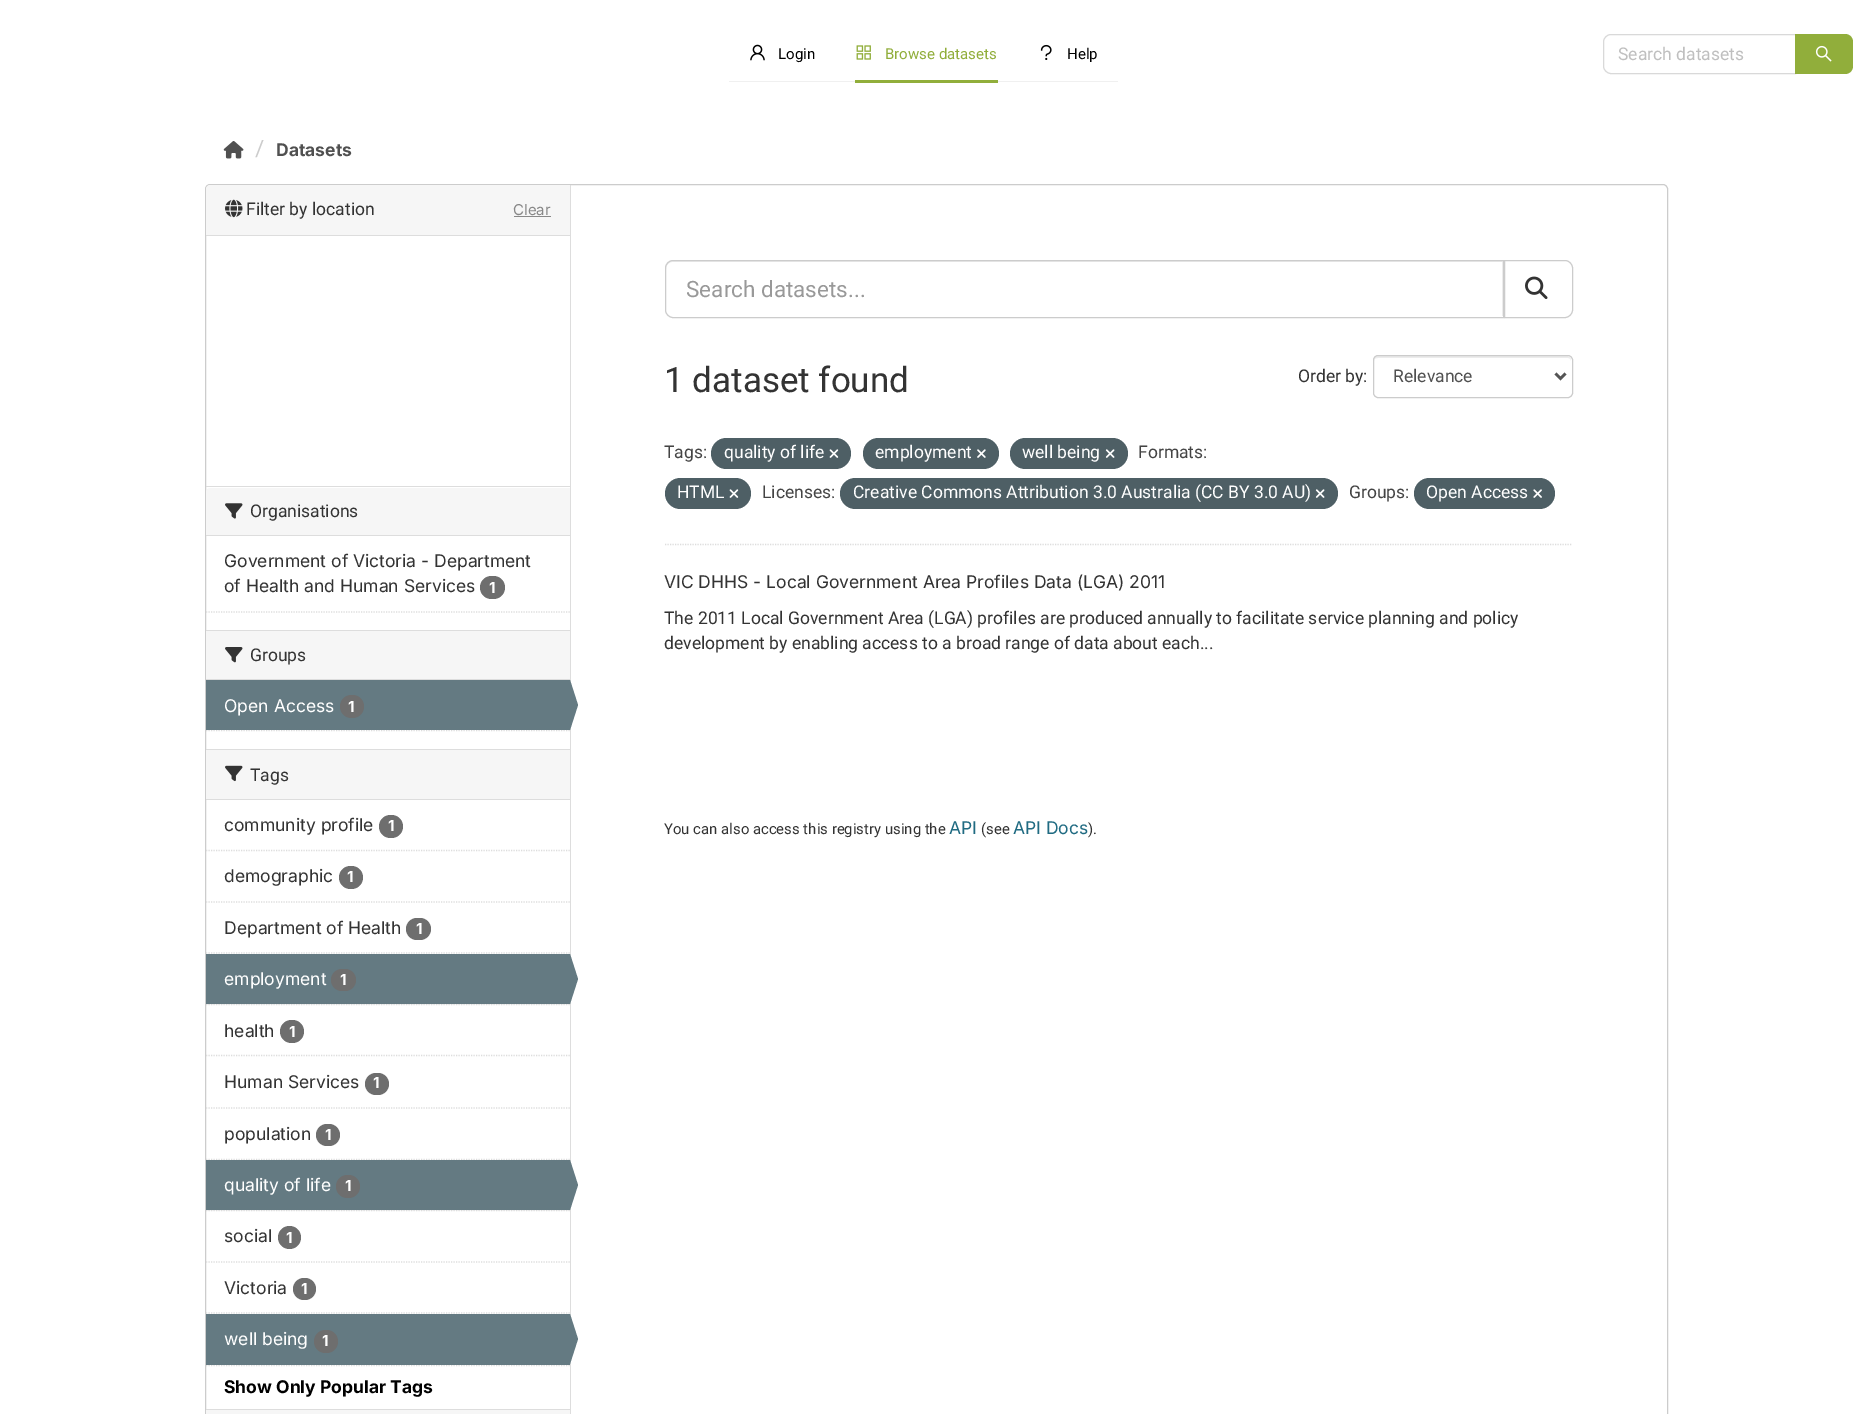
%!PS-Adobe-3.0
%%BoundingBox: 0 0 1871 1414
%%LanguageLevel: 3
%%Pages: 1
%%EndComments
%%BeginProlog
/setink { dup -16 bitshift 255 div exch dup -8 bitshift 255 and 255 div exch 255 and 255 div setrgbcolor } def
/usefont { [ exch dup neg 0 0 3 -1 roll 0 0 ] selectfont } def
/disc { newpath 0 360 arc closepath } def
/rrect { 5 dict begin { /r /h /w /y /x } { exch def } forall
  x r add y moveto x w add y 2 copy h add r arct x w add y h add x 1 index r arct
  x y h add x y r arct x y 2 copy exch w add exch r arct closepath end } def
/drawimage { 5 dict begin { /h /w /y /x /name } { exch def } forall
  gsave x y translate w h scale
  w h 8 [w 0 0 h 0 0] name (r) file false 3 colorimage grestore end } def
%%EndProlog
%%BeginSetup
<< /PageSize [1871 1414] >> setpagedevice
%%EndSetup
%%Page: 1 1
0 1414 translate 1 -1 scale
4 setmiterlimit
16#FFFFFF setink
0 0 1871 1414 rectfill
16#F0F0F0 setink
729 81 389 1 rectfill
(img1.raw) 750 44 15 17 drawimage
/Roboto-Regular 15 usefont
16#000000 setink
778 59 moveto (Login) show
(img2.raw) 856 45 15 15 drawimage
16#91AE3B setink
885 59 moveto (Browse datasets) show
855 80 143 3 rectfill
(img3.raw) 1040 44 12 16 drawimage
16#000000 setink
1067 59 moveto (Help) show
16#D9D9D9 setink
1611 34.5 moveto 1795.5 34.5 lineto 1795.5 73.5 lineto 1611 73.5 lineto 1607 73.5 1603.5 70 1603.5 66 curveto 1603.5 42 lineto 1603.5 38 1607 34.5 1611 34.5 curveto closepath stroke
/Roboto-Regular 17.5 usefont
16#BFBFBF setink
1618 60 moveto (Search datasets) show
16#91AE3B setink
1795 34 moveto 1845 34 lineto 1849.5 34 1853 37.5 1853 42 curveto 1853 66 lineto 1853 70.5 1849.5 74 1845 74 curveto 1795 74 lineto closepath fill
(img4.raw) 1815 45 17 17 drawimage
(img5.raw) 223 141 21 18 drawimage
/Roboto-Regular 22.5 usefont
16#CCCCCC setink
255 156 moveto (/) show
/Inter-Bold 17.5 usefont
16#505050 setink
276 156 moveto (Datasets) show
16#CCCCCC setink
205.5 184.5 1462 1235 4.5 rrect stroke
16#F6F6F6 setink
210 185 moveto 570 185 lineto 570 236 lineto 206 236 lineto 206 189 lineto 206 187 208 185 210 185 curveto closepath fill
16#DDDDDD setink
206 235 364 1 rectfill
(img6.raw) 225 199 18 19 drawimage
/Roboto-Regular 17.5 usefont
16#333333 setink
246 215 moveto (Filter by location) show
/Inter-Regular 15 usefont
16#888888 setink
513 215 moveto (Clear) show
514 216 37 1 rectfill
16#DDDDDD setink
206 486 364 1 rectfill
16#F6F6F6 setink
210 488 moveto 570 488 lineto 570 536 lineto 206 536 lineto 206 492 lineto 206 490 208 488 210 488 curveto closepath fill
16#DDDDDD setink
206 535 364 1 rectfill
(img7.raw) 225 503 18 16 drawimage
/Roboto-Regular 17.5 usefont
16#333333 setink
250 517 moveto (Organisations) show
/Inter-Regular 17.5 usefont
224 567 moveto (Government of Victoria - Department) show
224 592 moveto (of Health and Human Services) show
16#6E6E6E setink
480 576 25 23 11.5 rrect fill
/Inter-Bold 15 usefont
16#FFFFFF setink
489 593 moveto (1) show
16#DDDDDD setink
1.2 setlinewidth
[1.25 1.25] 0 setdash
206 612 moveto 570 612 lineto stroke
[
    [206 631 364 48 16#F6F6F6]
    [206 630 364 1 16#DDDDDD]
    [206 679 364 1 16#DDDDDD]
] { aload pop setink rectfill } forall
(img8.raw) 225 647 18 16 drawimage
/Roboto-Regular 17.5 usefont
16#333333 setink
250 661 moveto (Groups) show
16#DDDDDD setink
206 730.5 moveto 570 730.5 lineto stroke
16#647A82 setink
206 680 364 50 rectfill
/Inter-Regular 17.5 usefont
16#FFFFFF setink
224 712 moveto (Open Access) show
16#6E6E6E setink
340 695 24 23 11.5 rrect fill
/Inter-Bold 15 usefont
16#FFFFFF setink
348 712 moveto (1) show
16#DDDDDD setink
570 185 1 1229 rectfill
16#647A82 setink
570 730 moveto 570 680 lineto 578 705 lineto closepath fill
[
    [206 750 364 49 16#F6F6F6]
    [206 749 364 1 16#DDDDDD]
    [206 799 364 1 16#DDDDDD]
] { aload pop setink rectfill } forall
(img9.raw) 225 765 18 17 drawimage
/Roboto-Regular 17.5 usefont
16#333333 setink
250 781 moveto (Tags) show
16#DDDDDD setink
206 850.5 moveto 570 850.5 lineto stroke
/Inter-Regular 17.5 usefont
16#333333 setink
224 831 moveto (community profile) show
16#6E6E6E setink
379 815 24 23 11.5 rrect fill
/Inter-Bold 15 usefont
16#FFFFFF setink
388 831 moveto (1) show
16#DDDDDD setink
206 902 moveto 570 902 lineto stroke
/Inter-Regular 17.5 usefont
16#333333 setink
224 882 moveto (demographic) show
16#6E6E6E setink
339 866 24 23 11.5 rrect fill
/Inter-Bold 15 usefont
16#FFFFFF setink
347 882 moveto (1) show
16#DDDDDD setink
206 953 moveto 570 953 lineto stroke
/Inter-Regular 17.5 usefont
16#333333 setink
224 934 moveto (Department of Health) show
16#6E6E6E setink
406 918 25 22 11 rrect fill
/Inter-Bold 15 usefont
16#FFFFFF setink
416 934 moveto (1) show
16#F6F6F6 setink
207 1004 363 1 rectfill
16#DDDDDD setink
206 1004.5 moveto 570 1004.5 lineto stroke
16#647A82 setink
206 954 364 50 rectfill
/Inter-Regular 17.5 usefont
16#FFFFFF setink
224 985 moveto (employment) show
16#6E6E6E setink
331 969 25 22 11 rrect fill
/Inter-Bold 15 usefont
16#FFFFFF setink
340 985 moveto (1) show
16#647A82 setink
570 1004 moveto 570 954 lineto 578 979 lineto closepath fill
16#DDDDDD setink
206 1055.5 moveto 570 1055.5 lineto stroke
/Inter-Regular 17.5 usefont
16#333333 setink
224 1037 moveto (health) show
16#6E6E6E setink
280 1020 24 23 11.5 rrect fill
/Inter-Bold 15 usefont
16#FFFFFF setink
289 1037 moveto (1) show
16#DDDDDD setink
206 1108 moveto 570 1108 lineto stroke
/Inter-Regular 17.5 usefont
16#333333 setink
224 1088 moveto (Human Services) show
16#6E6E6E setink
365 1073 24 22 11 rrect fill
/Inter-Bold 15 usefont
16#FFFFFF setink
373 1088 moveto (1) show
16#DDDDDD setink
206 1159.5 moveto 570 1159.5 lineto stroke
/Inter-Regular 17.5 usefont
16#333333 setink
224 1140 moveto (population) show
16#6E6E6E setink
316 1124 24 22 11 rrect fill
/Inter-Bold 15 usefont
16#FFFFFF setink
325 1140 moveto (1) show
16#F6F6F6 setink
207 1210 363 1 rectfill
16#DDDDDD setink
206 1210.5 moveto 570 1210.5 lineto stroke
16#647A82 setink
206 1160 364 50 rectfill
/Inter-Regular 17.5 usefont
16#FFFFFF setink
224 1191 moveto (quality of life) show
16#6E6E6E setink
336 1175 24 23 11.5 rrect fill
/Inter-Bold 15 usefont
16#FFFFFF setink
345 1191 moveto (1) show
16#647A82 setink
570 1210 moveto 570 1160 lineto 578 1185 lineto closepath fill
16#DDDDDD setink
206 1262 moveto 570 1262 lineto stroke
/Inter-Regular 17.5 usefont
16#333333 setink
224 1242 moveto (social) show
16#6E6E6E setink
289.5 1237.5 11.5 disc fill
/Inter-Bold 15 usefont
16#FFFFFF setink
286 1243 moveto (1) show
16#DDDDDD setink
206 1313 moveto 570 1313 lineto stroke
/Inter-Regular 17.5 usefont
16#333333 setink
224 1294 moveto (Victoria) show
16#6E6E6E setink
293 1278 23 22 11 rrect fill
/Inter-Bold 15 usefont
16#FFFFFF setink
301 1294 moveto (1) show
16#DDDDDD setink
206 1365.5 moveto 570 1365.5 lineto stroke
16#647A82 setink
206 1314 364 51 rectfill
/Inter-Regular 17.5 usefont
16#FFFFFF setink
224 1345 moveto (well being) show
16#6E6E6E setink
314 1330 24 23 11.5 rrect fill
/Inter-Bold 15 usefont
16#FFFFFF setink
322 1346 moveto (1) show
16#647A82 setink
570 1364 moveto 570 1314 lineto 578 1339 lineto closepath fill
/Inter-Bold 17.5 usefont
16#000000 setink
224 1393 moveto (Show Only Popular Tags) show
16#F6F6F6 setink
206 1410 364 4 rectfill
16#DDDDDD setink
206 1409 364 1 rectfill
665 544.5 moveto 1572.5 544.5 lineto stroke
16#ECECEC setink
672 262 moveto 1502 262 lineto 1502 316 lineto 1503 316 lineto 1503 261 lineto 672 261 lineto 667 261 666 265 666 269 curveto 666 265 669 262 672 262 curveto closepath fill
16#CCCCCC setink
1 setlinewidth
[] 0 setdash
673 260.5 moveto 1503.5 260.5 lineto 1503.5 317.5 lineto 673 317.5 lineto 669 317.5 665.5 314 665.5 310 curveto 665.5 268 lineto 665.5 264 669 260.5 673 260.5 curveto closepath stroke
/Roboto-Regular 22.5 usefont
16#999999 setink
686 297 moveto (Search datasets...) show
16#CCCCCC setink
1504.5 260.5 moveto 1565 260.5 lineto 1569 260.5 1572.5 264 1572.5 268 curveto 1572.5 310 lineto 1572.5 314 1569 317.5 1565 317.5 curveto 1504.5 317.5 lineto closepath stroke
(img10.raw) 1525 276 23 23 drawimage
/Roboto-Regular 35 usefont
16#333333 setink
664 392 moveto (1 dataset found) show
/Roboto-Regular 17.5 usefont
1298 382 moveto (Order by:) show
16#ECECEC setink
1378 358 moveto 1568 358 lineto 1570 358 1571 359 1571 361 curveto 1571 360 lineto 1571 358 1569 356 1567 356 curveto 1378 356 lineto 1376 356 1374 358 1374 360 curveto 1374 361 lineto 1374 359 1375 358 1378 358 curveto closepath fill
16#CCCCCC setink
1373.5 355.5 199 42 4.5 rrect stroke
16#555555 setink
2.5 setlinewidth
1555.5 373.5 moveto 1560.5 378.5 lineto 1565.5 373.5 lineto stroke
16#505050 setink
1393 382 moveto (Relevance) show
16#444444 setink
664 458 moveto (Tags:) show
16#4E5F65 setink
711 438 140 31 15.5 rrect fill
16#FFFFFF setink
724 458 moveto (quality of life) show
(img11.raw) 829 449 10 9 drawimage
16#4E5F65 setink
863 438 136 31 15.5 rrect fill
16#FFFFFF setink
875 458 moveto (employment) show
(img12.raw) 977 449 9 9 drawimage
16#4E5F65 setink
1010 438 118 31 15.5 rrect fill
16#FFFFFF setink
1022 458 moveto (well being) show
(img13.raw) 1105 449 10 9 drawimage
16#444444 setink
1138 458 moveto (Formats:) show
16#4E5F65 setink
665 478 86 31 15.5 rrect fill
16#FFFFFF setink
677 498 moveto (HTML) show
(img11.raw) 729 489 10 9 drawimage
16#444444 setink
762 498 moveto (Licenses:) show
16#4E5F65 setink
840 478 498 31 15.5 rrect fill
16#FFFFFF setink
853 498 moveto (Creative Commons Attribution 3.0 Australia \(CC BY 3.0 AU\)) show
(img13.raw) 1315 489 10 9 drawimage
16#444444 setink
1349 498 moveto (Groups:) show
16#4E5F65 setink
1414 478 141 31 15.5 rrect fill
16#FFFFFF setink
1426 498 moveto (Open Access) show
(img14.raw) 1533 489 9 9 drawimage
/Inter-Regular 17.5 usefont
16#333333 setink
664 588 moveto (VIC DHHS - Local Government Area Profiles Data \(LGA\) 2011) show
/Roboto-Regular 17.5 usefont
664 624 moveto (The 2011 Local Government Area \(LGA\) profiles are produced annually to facilitate service planning and policy) show
664 649 moveto (development by enabling access to a broad range of data about each...) show
/Roboto-Regular 14.9 usefont
664 834 moveto (You can also access this registry using the) show
/Inter-Regular 17.5 usefont
16#206B82 setink
949 834 moveto (API) show
/Roboto-Regular 14.9 usefont
16#333333 setink
981 834 moveto (\(see) show
/Inter-Regular 17.5 usefont
16#206B82 setink
1013 834 moveto (API Docs) show
/Roboto-Regular 14.9 usefont
16#333333 setink
1088 834 moveto (\).) show
showpage
%%EOF
